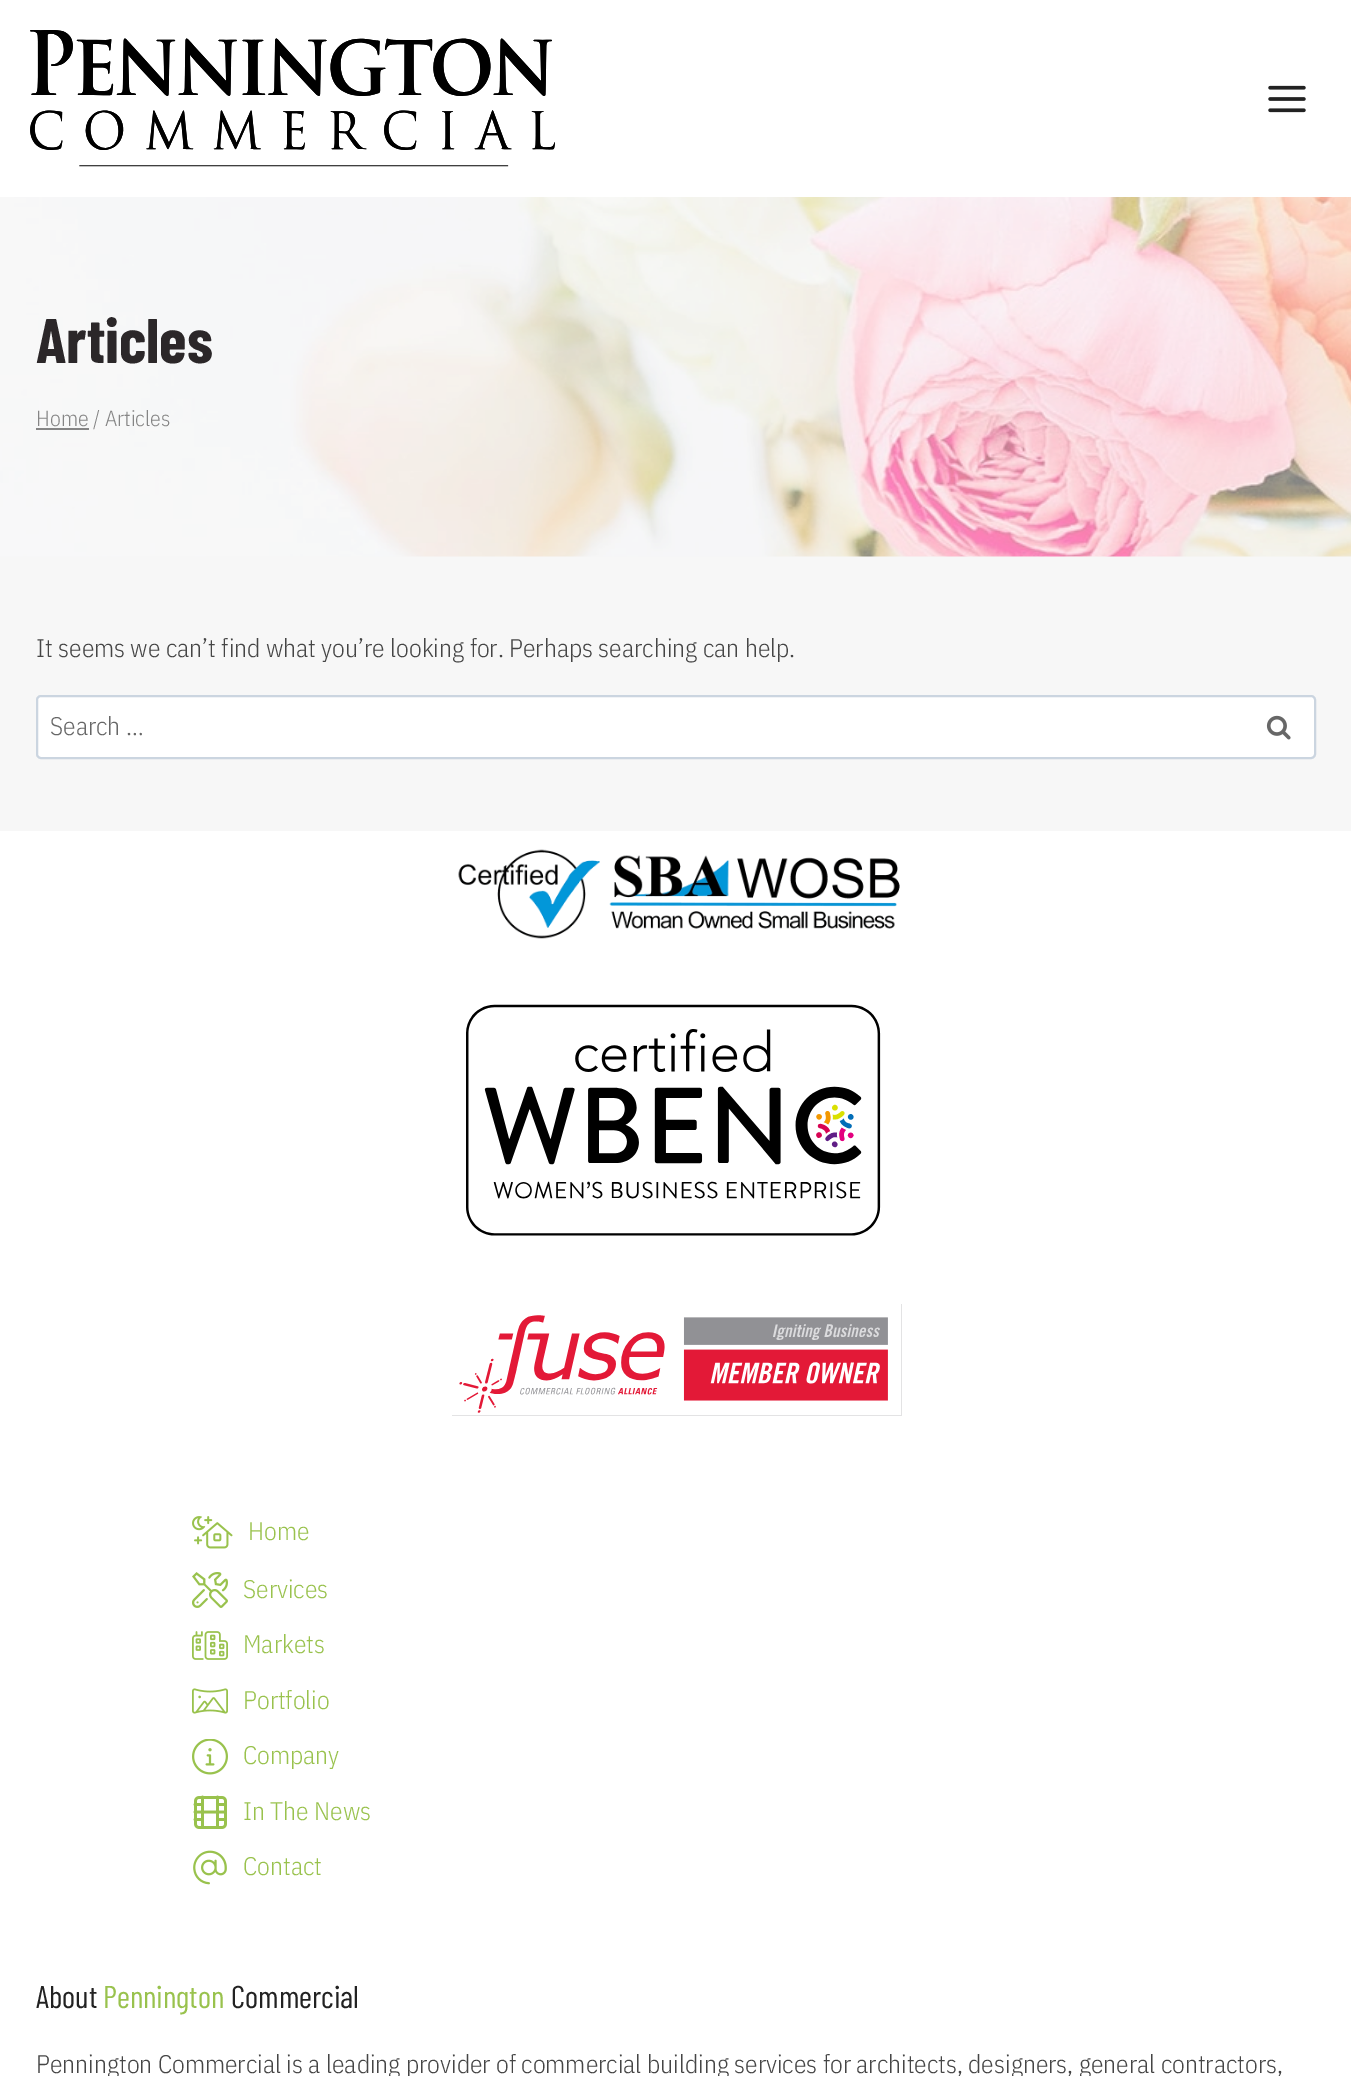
%!PS-Adobe-3.0
%%BoundingBox: 0 0 1351 2076
%%LanguageLevel: 3
%%Pages: 1
%%EndComments
%%BeginProlog
/setink { dup -16 bitshift 255 div exch dup -8 bitshift 255 and 255 div exch 255 and 255 div setrgbcolor } def
/usefont { [ exch dup neg 0 0 3 -1 roll 0 0 ] selectfont } def
/rrect { 5 dict begin { /r /h /w /y /x } { exch def } forall
  x r add y moveto x w add y 2 copy h add r arct x w add y h add x 1 index r arct
  x y h add x y r arct x y 2 copy exch w add exch r arct closepath end } def
/drawimage { 5 dict begin { /h /w /y /x /name } { exch def } forall
  gsave x y translate w h scale
  w h 8 [w 0 0 h 0 0] name (r) file false 3 colorimage grestore end } def
%%EndProlog
%%BeginSetup
<< /PageSize [1351 2076] >> setpagedevice
%%EndSetup
%%Page: 1 1
0 2076 translate 1 -1 scale
4 setmiterlimit
16#F7F7F7 setink
0 0 1351 2076 rectfill
16#FFFFFF setink
0 0 1351 197 rectfill
(img1.raw) 30 30 525 137 drawimage
(img2.raw) 1268 85 38 28 drawimage
(img3.raw) 0 197 1351 360 drawimage
/BarlowCondensed-Bold 63 usefont
16#2B2729 setink
36 363 moveto (Articles) show
16#858585 setink
36 428 53 2 rectfill
/IBMPlexSansCondensed-Light 21.75 usefont
36 426 moveto (Home / Articles) show
/IBMPlexSansCondensed-Light 25.5 usefont
16#454545 setink
36 657 moveto (It seems we can’t find what you’re looking for. Perhaps searching can help.) show
16#FFFFFF setink
37 696 1278 62 4 rrect gsave fill grestore
16#CBD5E0 setink
2 setlinewidth
stroke
16#676767 setink
50 735 moveto (Search …) show
(img4.raw) 1266 715 25 25 drawimage
16#FFFFFF setink
0 831 1351 1245 rectfill
(img5.raw) 458 849 442 90 drawimage
(img6.raw) 466 1004 415 232 drawimage
(img7.raw) 452 1304 450 112 drawimage
(img8.raw) 192 1516 41 33 drawimage
16#99C24D setink
248 1540 moveto (Home) show
(img9.raw) 192 1572 36 36 drawimage
243 1598 moveto (Services) show
(img10.raw) 192 1631 36 29 drawimage
243 1653 moveto (Markets) show
(img11.raw) 192 1688 36 26 drawimage
243 1709 moveto (Portfolio) show
(img12.raw) 192 1739 36 36 drawimage
243 1764 moveto (Company) show
(img13.raw) 193 1795 34 34 drawimage
243 1820 moveto (In The News) show
(img14.raw) 193 1850 34 35 drawimage
243 1875 moveto (Contact) show
/BarlowCondensed-Regular 31.5 usefont
16#222222 setink
36 2008 moveto (About) show
16#99C24D setink
103 2008 moveto (Pennington) show
16#222222 setink
231 2008 moveto (Commercial) show
/IBMPlexSansCondensed-Light 25.5 usefont
16#454545 setink
36 2073 moveto (Pennington Commercial is a leading provider of commercial building services for architects, designers, general contractors,) show
showpage
%%EOF
